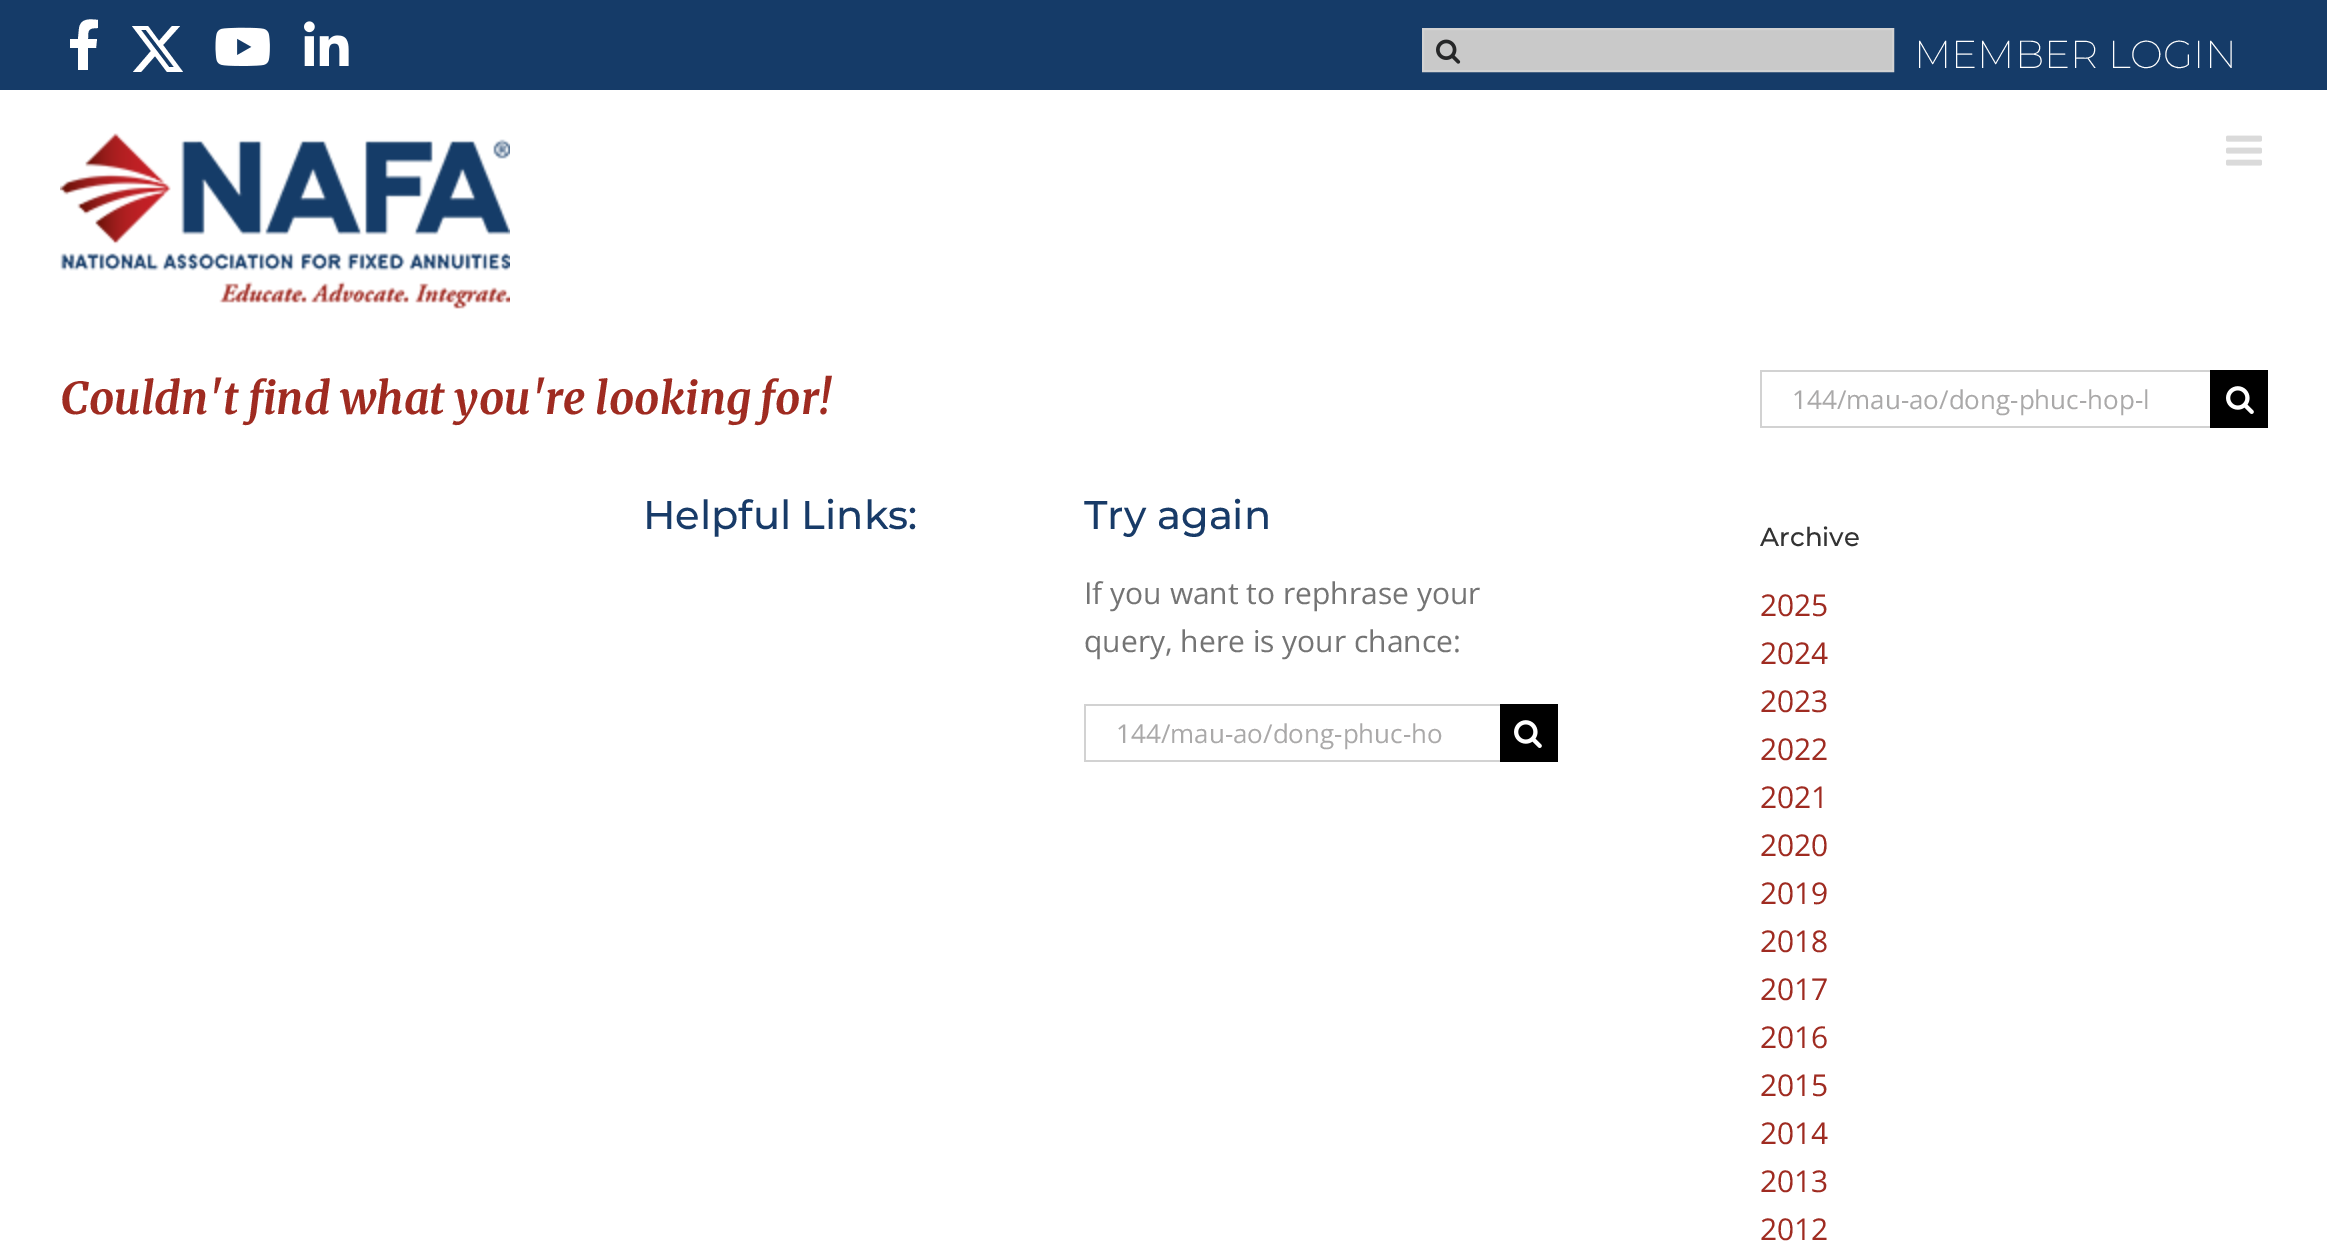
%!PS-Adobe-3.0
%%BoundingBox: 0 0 2327 1242
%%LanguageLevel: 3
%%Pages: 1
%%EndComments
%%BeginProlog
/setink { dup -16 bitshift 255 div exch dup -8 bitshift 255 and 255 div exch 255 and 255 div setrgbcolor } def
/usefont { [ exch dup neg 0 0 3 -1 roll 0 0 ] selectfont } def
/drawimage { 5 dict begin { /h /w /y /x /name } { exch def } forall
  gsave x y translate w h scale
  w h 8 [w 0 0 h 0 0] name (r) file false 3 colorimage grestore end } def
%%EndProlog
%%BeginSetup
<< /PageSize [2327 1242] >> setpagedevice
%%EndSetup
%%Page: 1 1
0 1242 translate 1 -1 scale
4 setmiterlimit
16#FFFFFF setink
0 0 2327 1242 rectfill
16#153B68 setink
0 0 2327 90 rectfill
16#FFFFFF setink
96 48 moveto 88 48 lineto 88 70 lineto 78 70 lineto 78 48 lineto 70 48 lineto 70 39 lineto 78 39 lineto 79 29 lineto 80 18 90 19 98 20 curveto 98 28 lineto 88 28 88 30 88 39 curveto 97 39 lineto closepath fill
172 26 moveto 180 26 lineto 163 45 lineto 183 72 lineto 167 72 lineto 155 56 lineto 141 72 lineto 133 72 lineto 151 51 lineto 132 26 lineto 148 26 lineto 159 41 lineto closepath 169 67 moveto 174 67 lineto 146 30 lineto 141 30 lineto closepath fill
(img1.raw) 215 27 55 39 drawimage
(img2.raw) 304 21 45 45 drawimage
16#C9C9C9 setink
1423 29 moveto 1893 29 lineto 1893 71 lineto 1423 71 lineto closepath gsave fill grestore
16#D2D2D2 setink
2 setlinewidth
stroke
(img3.raw) 1436 39 25 25 drawimage
/Montserrat-ExtraLight 39 usefont
16#FFFFFF setink
1914 68 moveto (MEMBER LOGIN) show
(img4.raw) 60 133 450 176 drawimage
(img5.raw) 2226 135 36 31 drawimage
/Merriweather-LightItalic 44 usefont
16#9F2B21 setink
60 414 moveto (Couldn't find what you're looking for!) show
/Montserrat-Medium 40 usefont
16#183B68 setink
643 529 moveto (Helpful Links:) show
1084 529 moveto (Try again) show
/OpenSans-Regular 30 usefont
16#747474 setink
1084 604 moveto (If you want to rephrase your) show
1084 652 moveto (query, here is your chance:) show
[
    [1084 704 416 2 16#D2D2D2]
    [1084 760 416 2 16#D2D2D2]
    [1084 704 2 58 16#D2D2D2]
] { aload pop setink rectfill } forall
/OpenSans-Regular 26 usefont
16#AAA9A9 setink
1116 743 moveto (144/mau-ao/dong-phuc-ho) show
16#000000 setink
1500 704 58 58 rectfill
(img6.raw) 1514 720 28 28 drawimage
[
    [1760 370 450 2 16#D2D2D2]
    [1760 426 450 2 16#D2D2D2]
    [1760 370 2 58 16#D2D2D2]
] { aload pop setink rectfill } forall
16#AAA9A9 setink
1792 409 moveto (144/mau-ao/dong-phuc-hop-l) show
16#000000 setink
2210 370 58 58 rectfill
(img6.raw) 2226 386 28 28 drawimage
/Montserrat-Medium 26 usefont
16#333333 setink
1760 546 moveto (Archive) show
/OpenSans-Regular 30 usefont
16#9F2B21 setink
[
    [(2025) 1760 616]
    [(2024) 1760 664]
    [(2023) 1760 712]
    [(2022) 1760 760]
    [(2021) 1760 808]
    [(2020) 1760 856]
    [(2019) 1760 904]
    [(2018) 1760 952]
    [(2017) 1760 1000]
    [(2016) 1760 1048]
    [(2015) 1760 1096]
    [(2014) 1760 1144]
    [(2013) 1760 1192]
    [(2012) 1760 1240]
] { aload pop moveto show } forall
showpage
%%EOF
